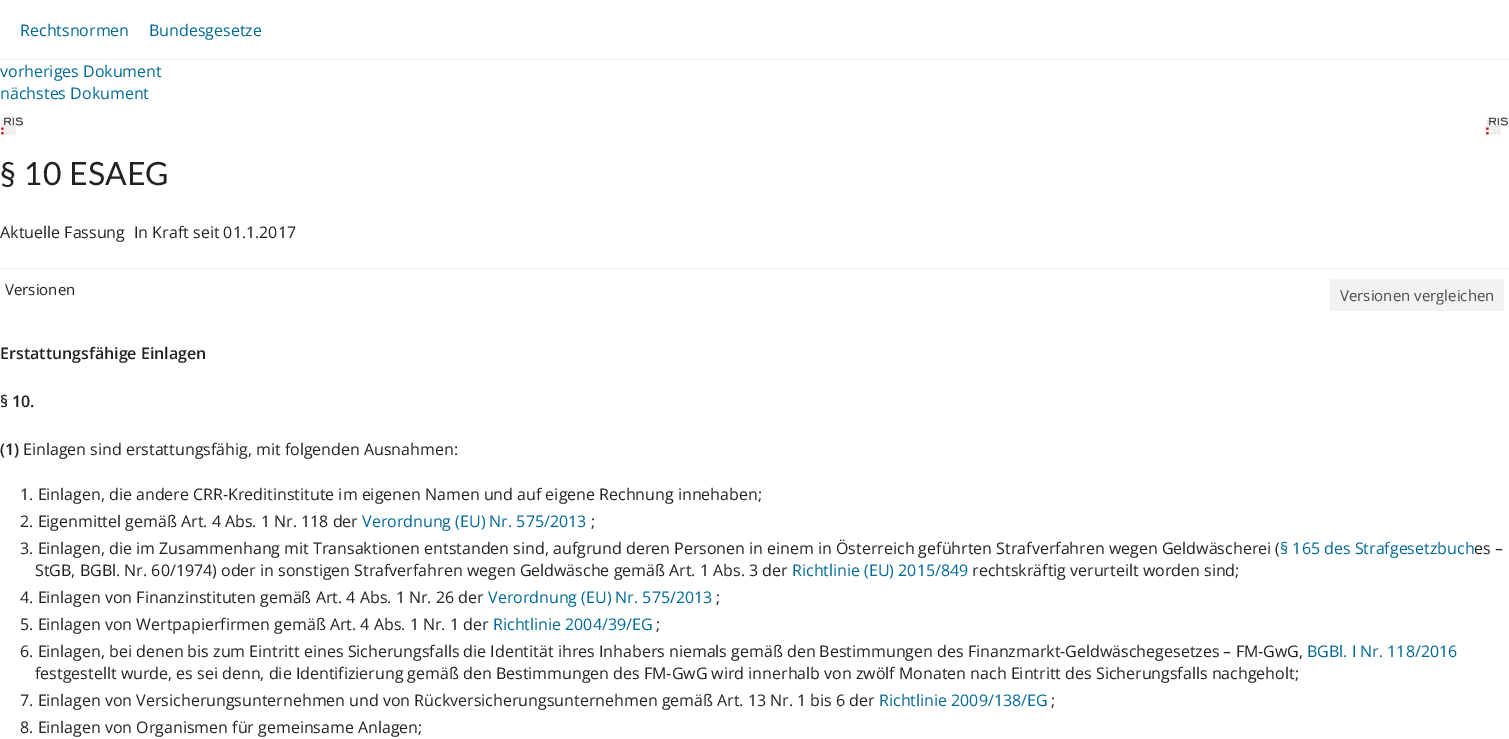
%!PS-Adobe-3.0
%%BoundingBox: 0 0 1509 739
%%LanguageLevel: 3
%%Pages: 1
%%EndComments
%%BeginProlog
/setink { dup -16 bitshift 255 div exch dup -8 bitshift 255 and 255 div exch 255 and 255 div setrgbcolor } def
/usefont { [ exch dup neg 0 0 3 -1 roll 0 0 ] selectfont } def
/drawimage { 5 dict begin { /h /w /y /x /name } { exch def } forall
  gsave x y translate w h scale
  w h 8 [w 0 0 h 0 0] name (r) file false 3 colorimage grestore end } def
%%EndProlog
%%BeginSetup
<< /PageSize [1509 739] >> setpagedevice
%%EndSetup
%%Page: 1 1
0 739 translate 1 -1 scale
4 setmiterlimit
16#FFFFFF setink
0 0 1509 739 rectfill
16#F0F0F0 setink
0 59 1509 1 rectfill
/OpenSans-Regular 16 usefont
16#006997 setink
[
    [(Rechtsnormen) 20 36]
    [(Bundesgesetze) 149 36]
    [(vorheriges Dokument) 0 77]
    [(nächstes Dokument) 0 99]
] { aload pop moveto show } forall
(img1.raw) 1485 117 24 21 drawimage
(img1.raw) 0 117 24 21 drawimage
/Lato-Regular 32 usefont
16#222222 setink
0 185 moveto (§ 10 ESAEG) show
/OpenSans-Regular 16 usefont
0 238 moveto (Aktuelle Fassung) show
134 238 moveto (In Kraft seit 01.1.2017) show
16#F0F0F0 setink
0 268 1509 1 rectfill
/OpenSans-Regular 15 usefont
16#222222 setink
5 295 moveto (Versionen) show
16#F2F2F2 setink
1330 279 174 32 rectfill
16#4A4A4A setink
1340 301 moveto (Versionen vergleichen) show
/OpenSans-SemiBold 16 usefont
16#222222 setink
[
    [(Erstattungsfähige Einlagen) 0 359]
    [(§ 10.) 0 407]
    [(\(1\)) 0 455]
] { aload pop moveto show } forall
/OpenSans-Regular 16 usefont
[
    [(Einlagen sind erstattungsfähig, mit folgenden Ausnahmen:) 23 455]
    [(1. Einlagen, die andere CRR-Kreditinstitute im eigenen Namen und auf eigene Rechnung innehaben;) 20 500]
    [(2. Eigenmittel gemäß Art. 4 Abs. 1 Nr. 118 der) 20 527]
] { aload pop moveto show } forall
16#006997 setink
362 527 moveto (Verordnung \(EU\) Nr. 575/2013) show
16#222222 setink
591 527 moveto (;) show
20 554 moveto (3. Einlagen, die im Zusammenhang mit Transaktionen entstanden sind, aufgrund deren Personen in einem in Österreich geführten Strafverfahren wegen Geldwäscherei \() show
16#006997 setink
1280 554 moveto (§ 165 des Strafgesetzbuch) show
16#222222 setink
1474 554 moveto (es –) show
35 576 moveto (StGB, BGBl. Nr. 60/1974\) oder in sonstigen Strafverfahren wegen Geldwäsche gemäß Art. 1 Abs. 3 der) show
16#006997 setink
792 576 moveto (Richtlinie \(EU\) 2015/849) show
16#222222 setink
972 576 moveto (rechtskräftig verurteilt worden sind;) show
20 603 moveto (4. Einlagen von Finanzinstituten gemäß Art. 4 Abs. 1 Nr. 26 der) show
16#006997 setink
488 603 moveto (Verordnung \(EU\) Nr. 575/2013) show
16#222222 setink
716 603 moveto (;) show
20 630 moveto (5. Einlagen von Wertpapierfirmen gemäß Art. 4 Abs. 1 Nr. 1 der) show
16#006997 setink
493 630 moveto (Richtlinie 2004/39/EG) show
16#222222 setink
656 630 moveto (;) show
20 657 moveto (6. Einlagen, bei denen bis zum Eintritt eines Sicherungsfalls die Identität ihres Inhabers niemals gemäß den Bestimmungen des Finanzmarkt-Geldwäschegesetzes – FM-GwG,) show
16#006997 setink
1307 657 moveto (BGBl. I Nr. 118/2016) show
16#222222 setink
35 679 moveto (festgestellt wurde, es sei denn, die Identifizierung gemäß den Bestimmungen des FM-GwG wird innerhalb von zwölf Monaten nach Eintritt des Sicherungsfalls nachgeholt;) show
20 706 moveto (7. Einlagen von Versicherungsunternehmen und von Rückversicherungsunternehmen gemäß Art. 13 Nr. 1 bis 6 der) show
16#006997 setink
879 706 moveto (Richtlinie 2009/138/EG) show
16#222222 setink
1051 706 moveto (;) show
20 733 moveto (8. Einlagen von Organismen für gemeinsame Anlagen;) show
showpage
%%EOF
